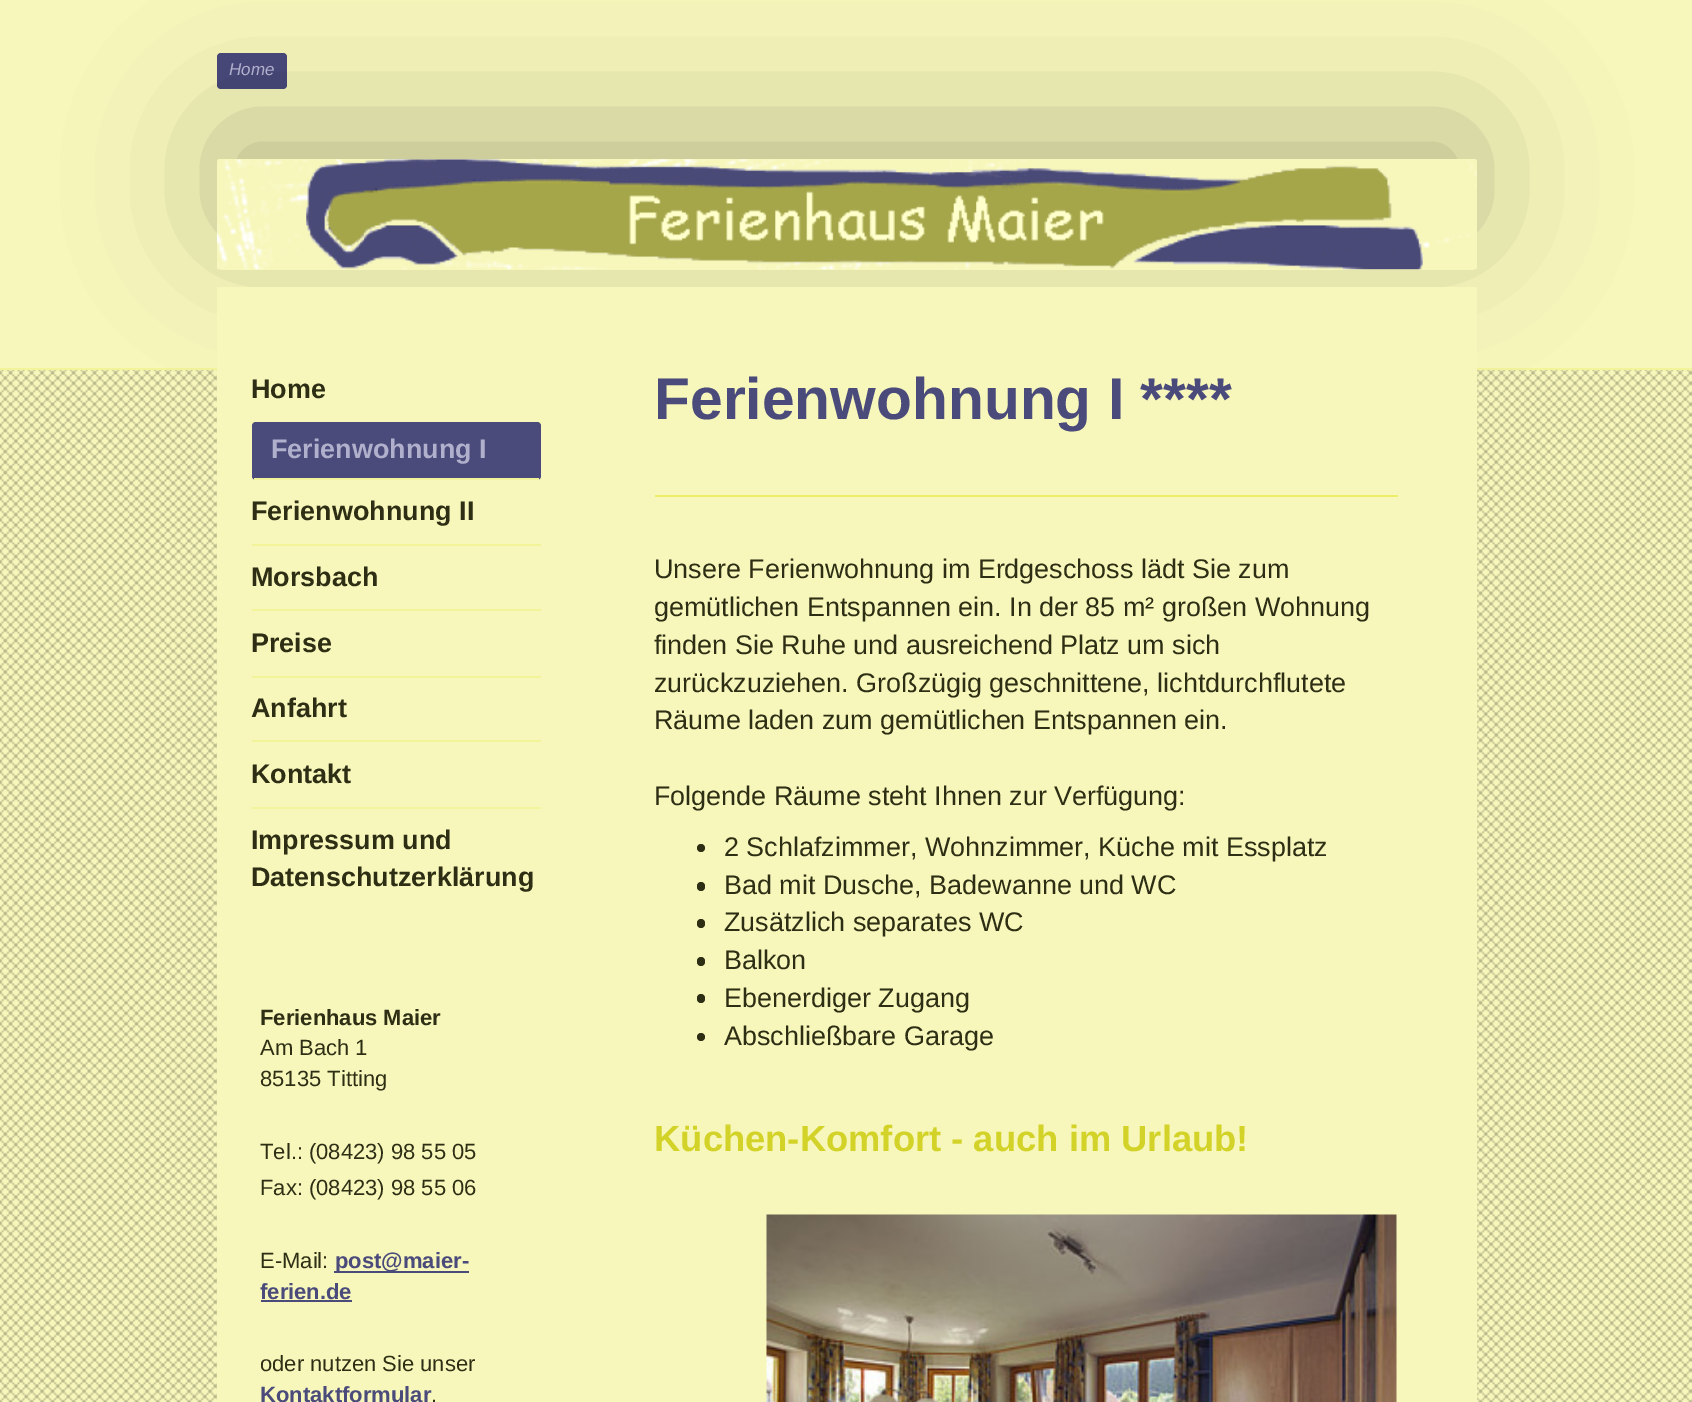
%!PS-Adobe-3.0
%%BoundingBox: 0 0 1692 1402
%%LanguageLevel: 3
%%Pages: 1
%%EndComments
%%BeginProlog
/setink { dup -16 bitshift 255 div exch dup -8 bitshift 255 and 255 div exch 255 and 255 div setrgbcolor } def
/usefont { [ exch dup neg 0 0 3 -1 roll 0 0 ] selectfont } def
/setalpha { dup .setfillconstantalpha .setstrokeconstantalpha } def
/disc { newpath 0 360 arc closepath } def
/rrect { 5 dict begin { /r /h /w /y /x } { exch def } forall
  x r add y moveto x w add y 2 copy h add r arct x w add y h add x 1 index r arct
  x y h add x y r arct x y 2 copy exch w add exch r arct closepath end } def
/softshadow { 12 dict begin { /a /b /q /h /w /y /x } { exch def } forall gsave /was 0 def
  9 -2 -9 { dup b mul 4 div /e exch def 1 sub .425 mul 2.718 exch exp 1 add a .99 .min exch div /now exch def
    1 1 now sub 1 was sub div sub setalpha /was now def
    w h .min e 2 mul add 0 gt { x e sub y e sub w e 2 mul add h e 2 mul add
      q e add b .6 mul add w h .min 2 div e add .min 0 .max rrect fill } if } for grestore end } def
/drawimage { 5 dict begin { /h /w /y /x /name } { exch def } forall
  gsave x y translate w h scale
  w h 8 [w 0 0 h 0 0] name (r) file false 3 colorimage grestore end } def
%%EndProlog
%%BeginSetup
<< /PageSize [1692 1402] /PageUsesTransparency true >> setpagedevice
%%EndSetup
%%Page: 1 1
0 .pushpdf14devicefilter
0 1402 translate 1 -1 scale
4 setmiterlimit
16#F7F7BB setink
0 0 1692 1402 rectfill
(img1.raw) 0 370 1692 1032 drawimage
16#F3F39A setink
0 368 1692 2 rectfill
16#4A4A7B setink
217 53 70 36 4 rrect fill
16#000000 setink
217 124 1260 111 4 70 0.24 softshadow
(img3.raw) 217 266 2 3 drawimage
16#F7F7BB setink
217 159 1260 111 4 rrect fill
(img2.raw) 217 159 1260 111 drawimage
(img4.raw) 306 159 1117 111 drawimage
/LiberationSans-Italic 17 usefont
16#B0B0CD setink
229 75 moveto (Home) show
16#F7F7BB setink
217 287 1260 1115 rectfill
16#F3F39A setink
252 422 289 2 rectfill
/LiberationSans-Bold 26.95 usefont
16#2E2E15 setink
251 398 moveto (Home) show
16#4A4A7B setink
252 422 289 58 4 rrect fill
16#F3F39A setink
254 478 285 2 rectfill
16#B0B0CD setink
271 458 moveto (Ferienwohnung I) show
16#F3F39A setink
252 544 289 2 rectfill
16#2E2E15 setink
251 520 moveto (Ferienwohnung II) show
16#F3F39A setink
252 609 289 2 rectfill
16#2E2E15 setink
251 586 moveto (Morsbach) show
16#F3F39A setink
252 676 289 2 rectfill
16#2E2E15 setink
251 652 moveto (Preise) show
16#F3F39A setink
252 740 289 2 rectfill
16#2E2E15 setink
251 717 moveto (Anfahrt) show
16#F3F39A setink
252 807 289 2 rectfill
16#2E2E15 setink
[
    [(Kontakt) 251 783]
    [(Impressum und) 251 849]
    [(Datenschutzerklärung) 251 886]
] { aload pop moveto show } forall
/LiberationSans-Bold 22 usefont
260 1025 moveto (Ferienhaus Maier) show
/LiberationSans-Regular 22 usefont
[
    [(Am Bach 1) 260 1055]
    [(85135 Titting) 260 1086]
    [(Tel.: \(08423\) 98 55 05) 260 1159]
    [(Fax: \(08423\) 98 55 06) 260 1195]
    [(E-Mail:) 260 1268]
] { aload pop moveto show } forall
16#4A4A7B setink
334 1271 135 2 rectfill
/LiberationSans-Bold 22 usefont
335 1268 moveto (post@maier-) show
260 1299 moveto (ferien.de) show
261 1300 91 2 rectfill
/LiberationSans-Regular 22 usefont
16#2E2E15 setink
260 1371 moveto (oder nutzen Sie unser) show
/LiberationSans-Bold 22 usefont
16#4A4A7B setink
260 1402 moveto (Kontaktformular) show
/LiberationSans-Regular 22 usefont
16#2E2E15 setink
431 1402 moveto (.) show
/LiberationSans-Bold 58.75 usefont
16#4A4A7B setink
654 419 moveto (Ferienwohnung I ****) show
16#EDED69 setink
655 495 743 2 rectfill
/LiberationSans-Regular 26.95 usefont
16#2E2E15 setink
[
    [(Unsere Ferienwohnung im Erdgeschoss lädt Sie zum) 654 578]
    [(gemütlichen Entspannen ein. In der 85 m² großen Wohnung) 654 616]
    [(finden Sie Ruhe und ausreichend Platz um sich) 654 654]
    [(zurückzuziehen. Großzügig geschnittene, lichtdurchflutete) 654 692]
    [(Räume laden zum gemütlichen Entspannen ein.) 654 729]
    [(Folgende Räume steht Ihnen zur Verfügung:) 654 805]
] { aload pop moveto show } forall
701 848 4 disc fill
724 856 moveto (2 Schlafzimmer, Wohnzimmer, Küche mit Essplatz) show
697 882 8 9 4 rrect fill
724 894 moveto (Bad mit Dusche, Badewanne und WC) show
697 919 8 9 4 rrect fill
724 931 moveto (Zusätzlich separates WC) show
697 957 8 9 4 rrect fill
724 969 moveto (Balkon) show
697 994 8 9 4 rrect fill
724 1007 moveto (Ebenerdiger Zugang) show
701 1037 4 disc fill
724 1045 moveto (Abschließbare Garage) show
/LiberationSans-Bold 36.4 usefont
16#D2D228 setink
654 1151 moveto (Küchen-Komfort - auch im Urlaub!) show
(img5.raw) 766 1214 631 188 drawimage
.poppdf14devicefilter showpage
%%EOF
